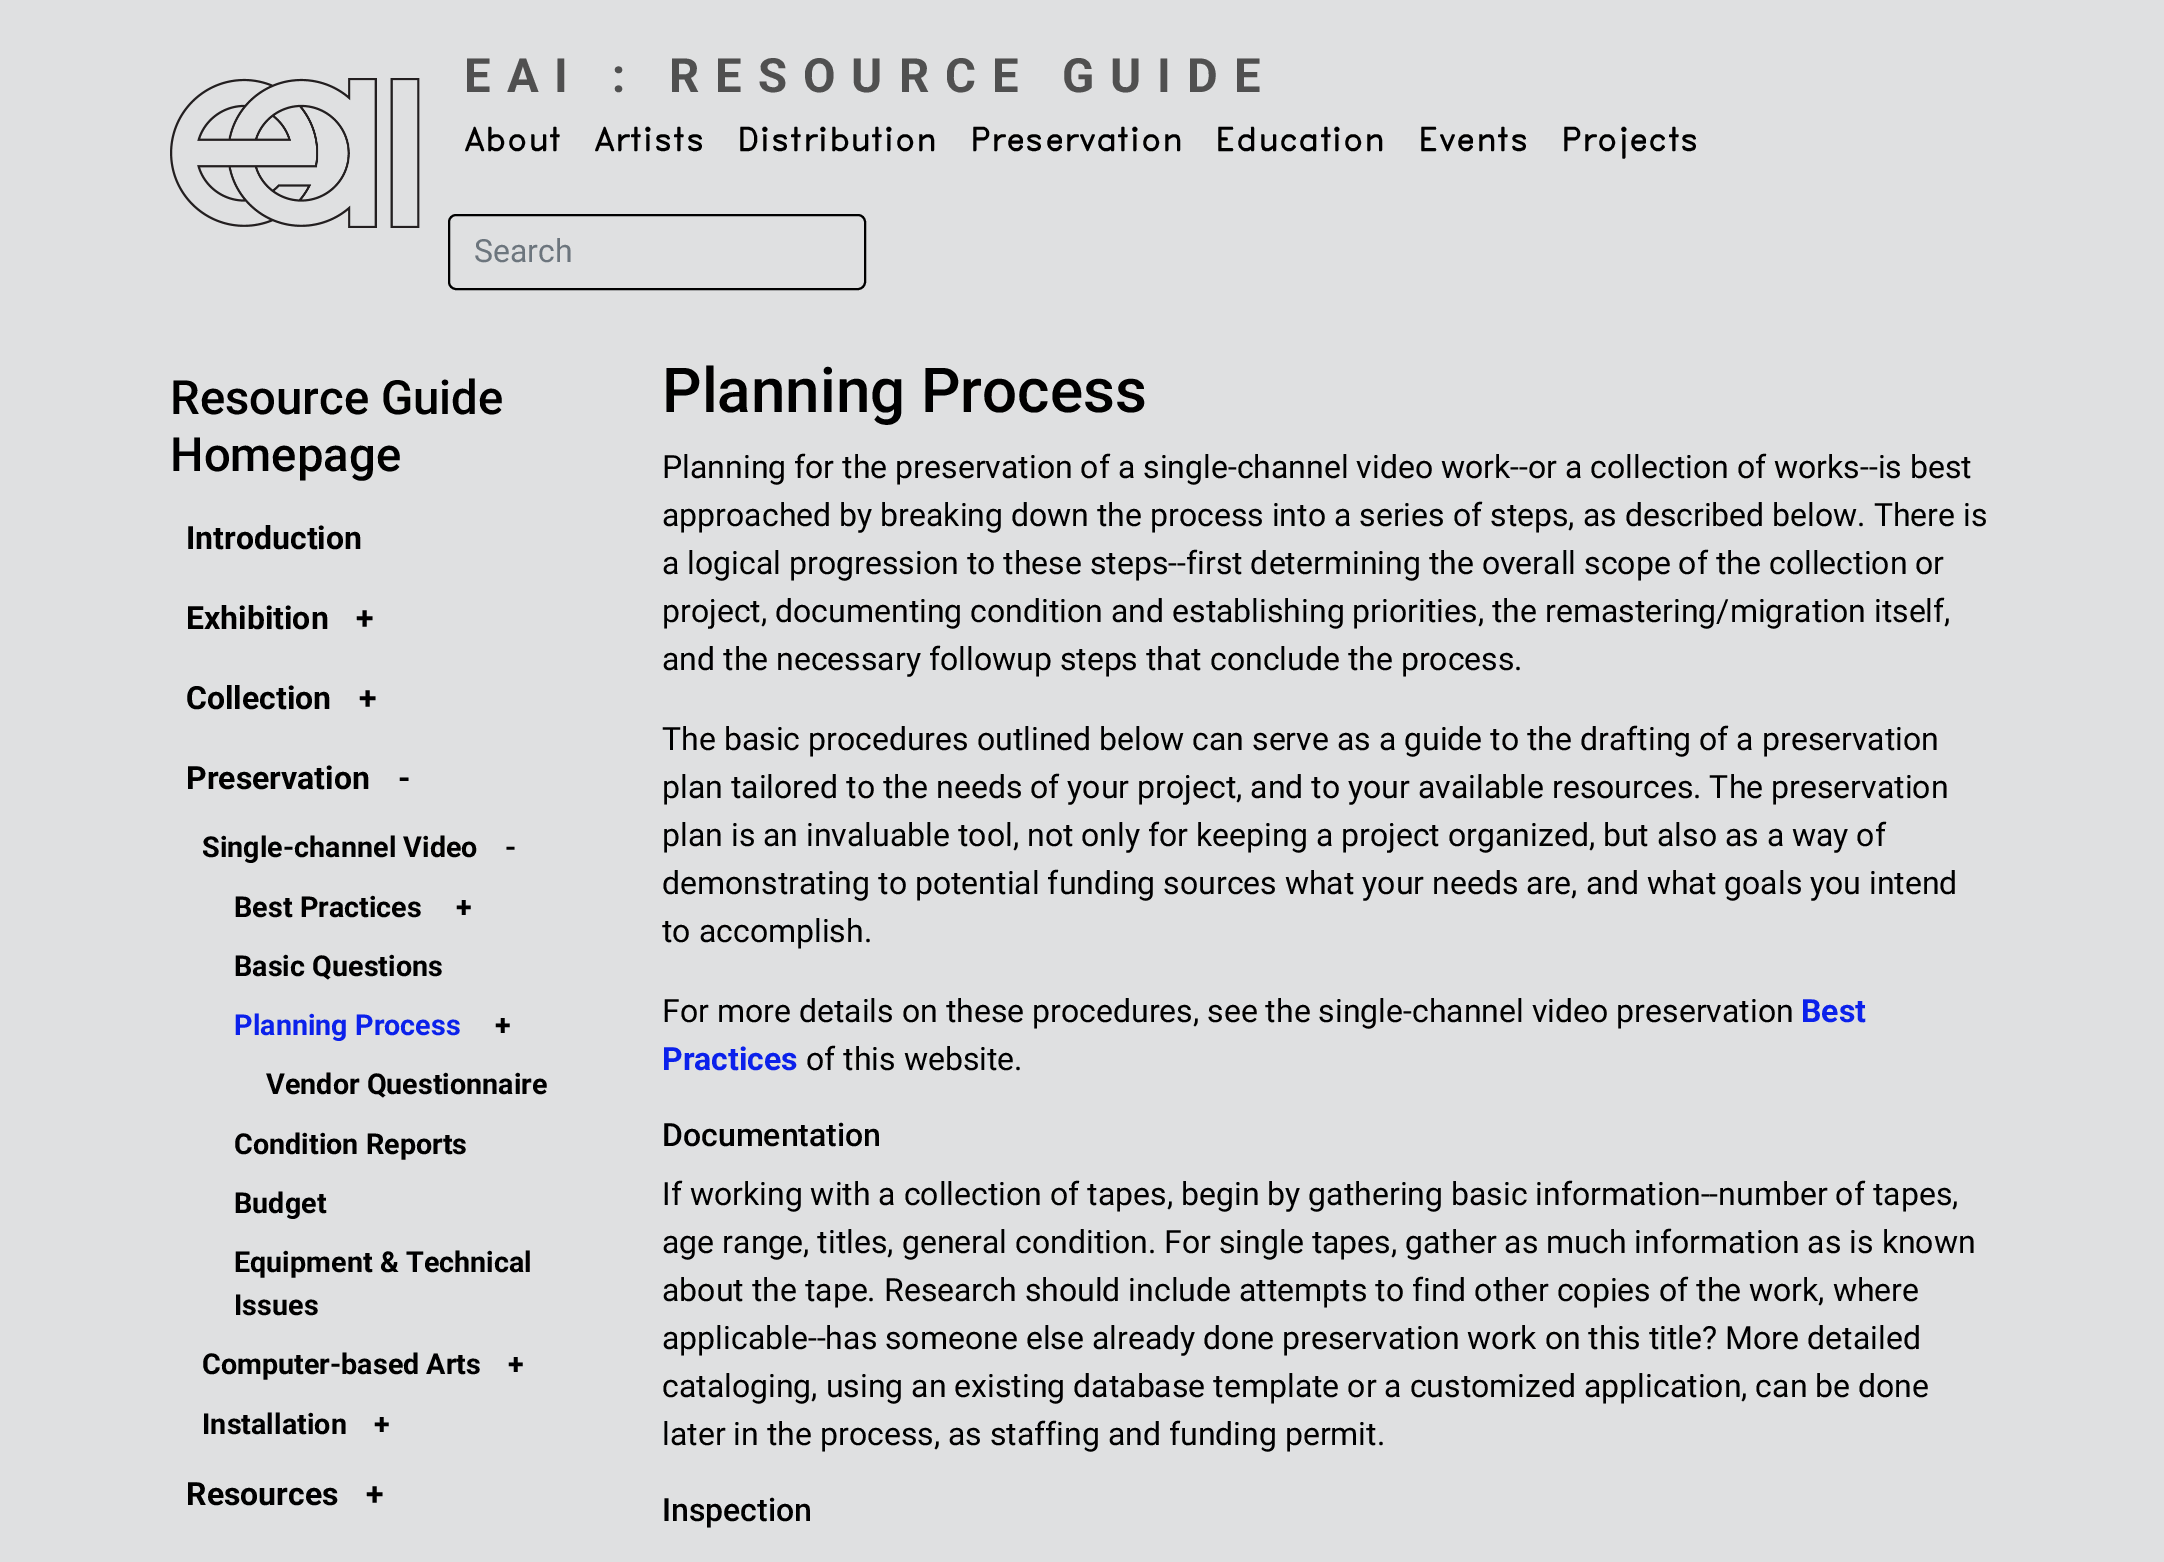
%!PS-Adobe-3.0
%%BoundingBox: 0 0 2164 1562
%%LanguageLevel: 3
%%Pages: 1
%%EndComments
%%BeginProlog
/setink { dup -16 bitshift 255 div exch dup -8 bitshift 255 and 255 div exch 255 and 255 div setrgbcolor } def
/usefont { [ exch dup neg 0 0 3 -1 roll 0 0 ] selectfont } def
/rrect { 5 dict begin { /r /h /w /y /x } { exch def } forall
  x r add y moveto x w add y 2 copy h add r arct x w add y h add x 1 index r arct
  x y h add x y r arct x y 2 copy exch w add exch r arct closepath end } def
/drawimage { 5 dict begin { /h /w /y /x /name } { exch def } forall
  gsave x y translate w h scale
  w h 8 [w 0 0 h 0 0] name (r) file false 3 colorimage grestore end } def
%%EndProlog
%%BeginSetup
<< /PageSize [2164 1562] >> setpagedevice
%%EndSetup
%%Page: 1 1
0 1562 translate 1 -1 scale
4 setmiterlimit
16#DFE0E1 setink
0 0 2164 1562 rectfill
(img1.raw) 170 78 250 150 drawimage
/Roboto-Bold 47.25 usefont
16#505050 setink
464 92 moveto 16 0 (EAI : RESOURCE GUIDE) ashow
/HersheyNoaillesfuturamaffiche-Regular 32 usefont
16#000000 setink
[
    [(About) 464 148]
    [(Artists) 594 148]
    [(Distribution) 737 148]
    [(Preservation) 970 148]
    [(Education) 1215 148]
    [(Events) 1418 148]
    [(Projects) 1561 148]
] { aload pop moveto show } forall
2 setlinewidth
449 215 416 74 7 rrect stroke
/Roboto-Regular 32 usefont
16#6C757D setink
474 262 moveto (Search) show
/Roboto-Medium 47.25 usefont
16#000000 setink
170 414 moveto (Resource Guide) show
170 471 moveto (Homepage) show
/Roboto-Bold 32 usefont
[
    [(Introduction) 186 549]
    [(Exhibition) 186 629]
    [(+) 356 629]
    [(Collection) 186 709]
    [(+) 359 709]
    [(Preservation) 186 789]
    [(-) 398 789]
] { aload pop moveto show } forall
/Roboto-Bold 28.75 usefont
[
    [(Single-channel Video) 202 857]
    [(-) 505 857]
    [(Best Practices) 234 917]
    [(+) 456 917]
    [(Basic Questions) 234 976]
] { aload pop moveto show } forall
16#0B21EB setink
234 1035 moveto (Planning Process) show
16#000000 setink
[
    [(+) 495 1035]
    [(Vendor Questionnaire) 266 1094]
    [(Condition Reports) 234 1154]
    [(Budget) 234 1213]
    [(Equipment & Technical) 234 1272]
    [(Issues) 234 1315]
    [(Computer-based Arts) 202 1374]
    [(+) 508 1374]
    [(Installation) 202 1434]
    [(+) 374 1434]
] { aload pop moveto show } forall
/Roboto-Bold 32 usefont
186 1505 moveto (Resources) show
366 1505 moveto (+) show
/Roboto-Medium 62 usefont
662 412 moveto (Planning Process) show
/Roboto-Regular 32 usefont
[
    [(Planning for the preservation of a single-channel video work--or a collection of works--is best) 662 478]
    [(approached by breaking down the process into a series of steps, as described below. There is) 662 526]
    [(a logical progression to these steps--first determining the overall scope of the collection or) 662 574]
    [(project, documenting condition and establishing priorities, the remastering/migration itself,) 662 622]
    [(and the necessary followup steps that conclude the process.) 662 670]
    [(The basic procedures outlined below can serve as a guide to the drafting of a preservation) 662 750]
    [(plan tailored to the needs of your project, and to your available resources. The preservation) 662 798]
    [(plan is an invaluable tool, not only for keeping a project organized, but also as a way of) 662 846]
    [(demonstrating to potential funding sources what your needs are, and what goals you intend) 662 894]
    [(to accomplish.) 662 942]
    [(For more details on these procedures, see the single-channel video preservation) 662 1022]
] { aload pop moveto show } forall
/Roboto-Bold 32 usefont
16#0B21EB setink
1801 1022 moveto (Best) show
662 1070 moveto (Practices) show
/Roboto-Regular 32 usefont
16#000000 setink
806 1070 moveto (of this website.) show
/Roboto-Medium 32 usefont
662 1146 moveto (Documentation) show
/Roboto-Regular 32 usefont
[
    [(If working with a collection of tapes, begin by gathering basic information--number of tapes,) 662 1205]
    [(age range, titles, general condition. For single tapes, gather as much information as is known) 662 1253]
    [(about the tape. Research should include attempts to find other copies of the work, where) 662 1301]
    [(applicable--has someone else already done preservation work on this title? More detailed) 662 1349]
    [(cataloging, using an existing database template or a customized application, can be done) 662 1397]
    [(later in the process, as staffing and funding permit.) 662 1445]
] { aload pop moveto show } forall
/Roboto-Medium 32 usefont
662 1521 moveto (Inspection) show
showpage
%%EOF
